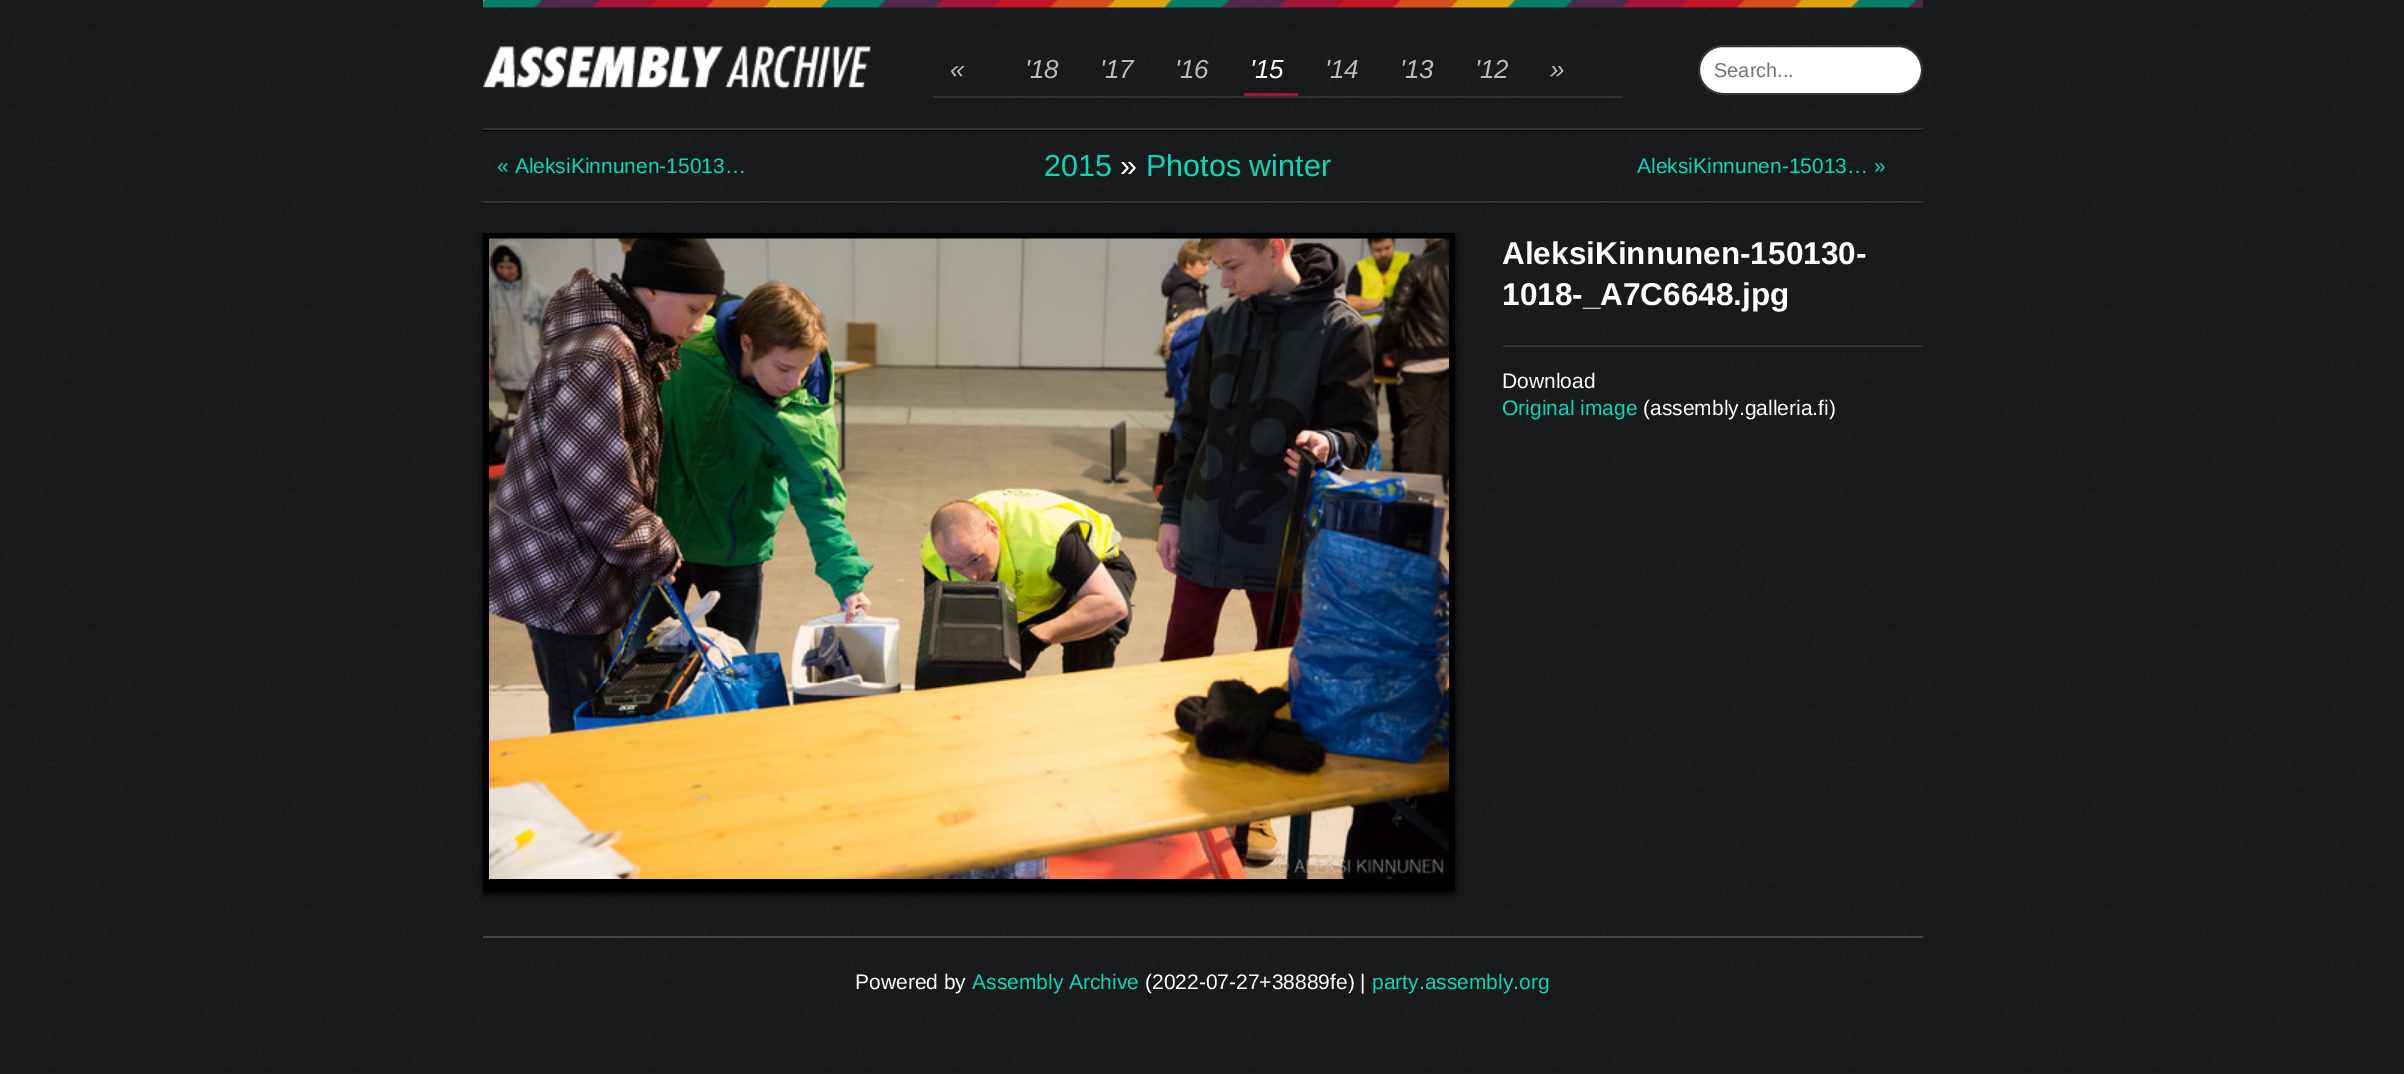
%!PS-Adobe-3.0
%%BoundingBox: 0 0 2404 1074
%%LanguageLevel: 3
%%Pages: 1
%%EndComments
%%BeginProlog
/setink { dup -16 bitshift 255 div exch dup -8 bitshift 255 and 255 div exch 255 and 255 div setrgbcolor } def
/usefont { [ exch dup neg 0 0 3 -1 roll 0 0 ] selectfont } def
/setalpha { dup .setfillconstantalpha .setstrokeconstantalpha } def
/rrect { 5 dict begin { /r /h /w /y /x } { exch def } forall
  x r add y moveto x w add y 2 copy h add r arct x w add y h add x 1 index r arct
  x y h add x y r arct x y 2 copy exch w add exch r arct closepath end } def
/softshadow { 12 dict begin { /a /b /q /h /w /y /x } { exch def } forall gsave /was 0 def
  9 -2 -9 { dup b mul 4 div /e exch def 1 sub .425 mul 2.718 exch exp 1 add a .99 .min exch div /now exch def
    1 1 now sub 1 was sub div sub setalpha /was now def
    w h .min e 2 mul add 0 gt { x e sub y e sub w e 2 mul add h e 2 mul add
      q e add b .6 mul add w h .min 2 div e add .min 0 .max rrect fill } if } for grestore end } def
/drawimage { 5 dict begin { /h /w /y /x /name } { exch def } forall
  gsave x y translate w h scale
  w h 8 [w 0 0 h 0 0] name (r) file false 3 colorimage grestore end } def
%%EndProlog
%%BeginSetup
<< /PageSize [2404 1074] /PageUsesTransparency true >> setpagedevice
%%EndSetup
%%Page: 1 1
0 .pushpdf14devicefilter
0 1074 translate 1 -1 scale
4 setmiterlimit
16#18191B setink
0 0 2404 1074 rectfill
(img1.raw) 2 1 2401 1067 drawimage
16#000000 setink
483 130 1440 1 rectfill
(img2.raw) 483 0 1440 8 drawimage
16#333333 setink
483 128 1440 2 rectfill
(img3.raw) 483 45 389 44 drawimage
933 96 690 2 rectfill
/LiberationSans-Italic 26 usefont
16#BBBBBB setink
[
    [(«) 950 78]
    [('18) 1025 78]
    [('17) 1100 78]
    [('16) 1175 78]
] { aload pop moveto show } forall
16#A21438 setink
1244 93 54 3 rectfill
16#FFFFFF setink
1250 78 moveto ('15) show
16#BBBBBB setink
[
    [('14) 1325 78]
    [('13) 1400 78]
    [('12) 1475 78]
    [(») 1550 78]
] { aload pop moveto show } forall
16#FFFFFF setink
1699 46 223 48 24 rrect gsave fill grestore
16#333333 setink
2 setlinewidth
stroke
/LiberationSans-Regular 20 usefont
16#757575 setink
1714 77 moveto (Search...) show
16#111111 setink
483 203 1440 1 rectfill
16#333333 setink
483 201 1440 2 rectfill
/LiberationSans-Regular 21 usefont
16#0BD8B9 setink
497 173 moveto (« AleksiKinnunen-15013…) show
/LiberationSans-Regular 30.5 usefont
1044 176 moveto (2015) show
16#FFFFFF setink
1120 176 moveto (») show
16#0BD8B9 setink
1146 176 moveto (Photos winter) show
/LiberationSans-Regular 21 usefont
1637 173 moveto (AleksiKinnunen-15013… ») show
16#000000 setink
483 236 972 658 0 3 1 softshadow
483 233 972 658 rectfill
(img4.raw) 489 238 960 641 drawimage
/LiberationSans-Bold 31.5 usefont
16#FFFFFF setink
1502 264 moveto (AleksiKinnunen-150130-) show
1502 305 moveto (1018-_A7C6648.jpg) show
16#111111 setink
1503 344 420 1 rectfill
16#333333 setink
1503 345 420 2 rectfill
/LiberationSans-Regular 21 usefont
16#FFFFFF setink
1502 388 moveto (Download) show
16#0BD8B9 setink
1502 415 moveto (Original image) show
16#FFFFFF setink
1643 415 moveto (\(assembly.galleria.fi\)) show
16#444444 setink
483 936 1440 2 rectfill
16#FFFFFF setink
855 989 moveto (Powered by) show
16#0BD8B9 setink
972 989 moveto (Assembly Archive) show
16#FFFFFF setink
1145 989 moveto (\(2022-07-27+38889fe\) |) show
16#0BD8B9 setink
1372 989 moveto (party.assembly.org) show
.poppdf14devicefilter showpage
%%EOF
